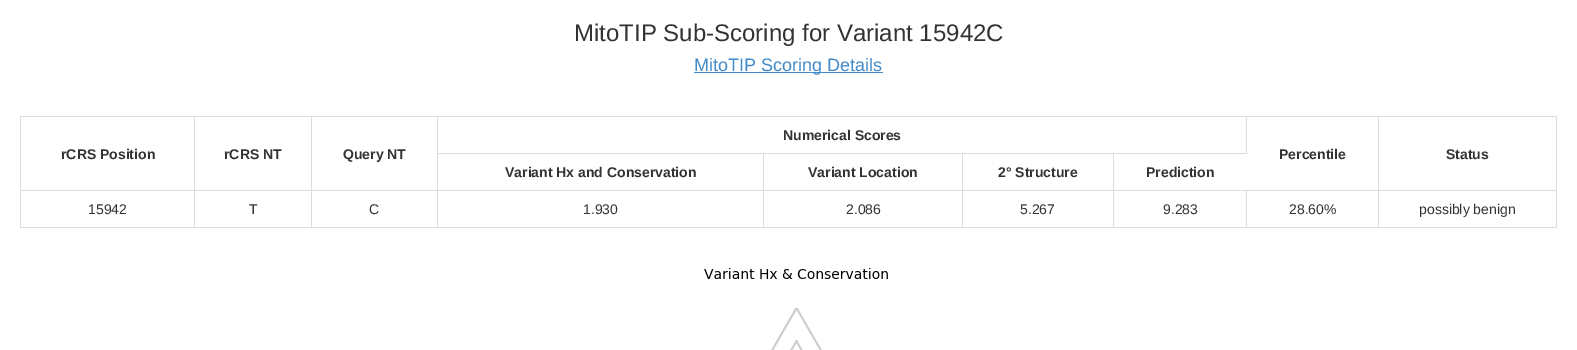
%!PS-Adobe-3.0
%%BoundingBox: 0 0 1577 350
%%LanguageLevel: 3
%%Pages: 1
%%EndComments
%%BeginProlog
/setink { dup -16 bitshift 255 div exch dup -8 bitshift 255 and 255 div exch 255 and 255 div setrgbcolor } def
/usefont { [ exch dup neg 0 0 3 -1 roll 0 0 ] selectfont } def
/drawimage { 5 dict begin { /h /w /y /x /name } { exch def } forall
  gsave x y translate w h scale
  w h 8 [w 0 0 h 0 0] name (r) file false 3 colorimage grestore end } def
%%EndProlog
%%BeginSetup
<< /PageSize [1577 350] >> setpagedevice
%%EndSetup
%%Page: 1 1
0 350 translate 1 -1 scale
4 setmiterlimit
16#FFFFFF setink
0 0 1577 350 rectfill
/LiberationSans-Regular 24 usefont
16#333333 setink
574 41 moveto (MitoTIP Sub-Scoring for Variant 15942C) show
16#428BCA setink
694 72 189 1 rectfill
/LiberationSans-Regular 18 usefont
694 71 moveto (MitoTIP Scoring Details) show
[
    [20 116 1537 1 16#DDDDDD]
    [1556 116 1 112 16#DDDDDD]
    [20 227 1537 1 16#DDDDDD]
    [20 116 1 112 16#DDDDDD]
    [437 153 810 1 16#DDDDDD]
    [1246 116 1 38 16#DDDDDD]
] { aload pop setink rectfill } forall
/LiberationSans-Bold 14 usefont
16#333333 setink
[
    [(Numerical Scores) 783 140]
    [(rCRS Position) 61 159]
    [(rCRS NT) 224 159]
] { aload pop moveto show } forall
[
    [20 190 1537 1 16#DDDDDD]
    [437 190 1 38 16#DDDDDD]
    [437 116 1 75 16#DDDDDD]
] { aload pop setink rectfill } forall
16#333333 setink
[
    [(Query NT) 343 159]
    [(Percentile) 1279 159]
    [(Status) 1446 159]
] { aload pop moveto show } forall
16#DDDDDD setink
763 190 1 38 rectfill
763 153 1 38 rectfill
16#333333 setink
505 177 moveto (Variant Hx and Conservation) show
16#DDDDDD setink
962 190 1 38 rectfill
962 153 1 38 rectfill
16#333333 setink
808 177 moveto (Variant Location) show
16#DDDDDD setink
1113 190 1 38 rectfill
1113 153 1 38 rectfill
16#333333 setink
998 177 moveto (2° Structure) show
1146 177 moveto (Prediction) show
16#DDDDDD setink
194 116 1 112 rectfill
/LiberationSans-Regular 14 usefont
16#333333 setink
88 214 moveto (15942) show
16#DDDDDD setink
311 116 1 112 rectfill
16#333333 setink
[
    [(T) 249 214]
    [(C) 369 214]
    [(1.930) 583 214]
    [(2.086) 846 214]
    [(5.267) 1020 214]
] { aload pop moveto show } forall
16#DDDDDD setink
1246 190 1 38 rectfill
16#333333 setink
1163 214 moveto (9.283) show
16#DDDDDD setink
1378 116 1 112 rectfill
16#333333 setink
1289 214 moveto (28.60%) show
1419 214 moveto (possibly benign) show
(img1.raw) 704 268 184 82 drawimage
showpage
%%EOF
